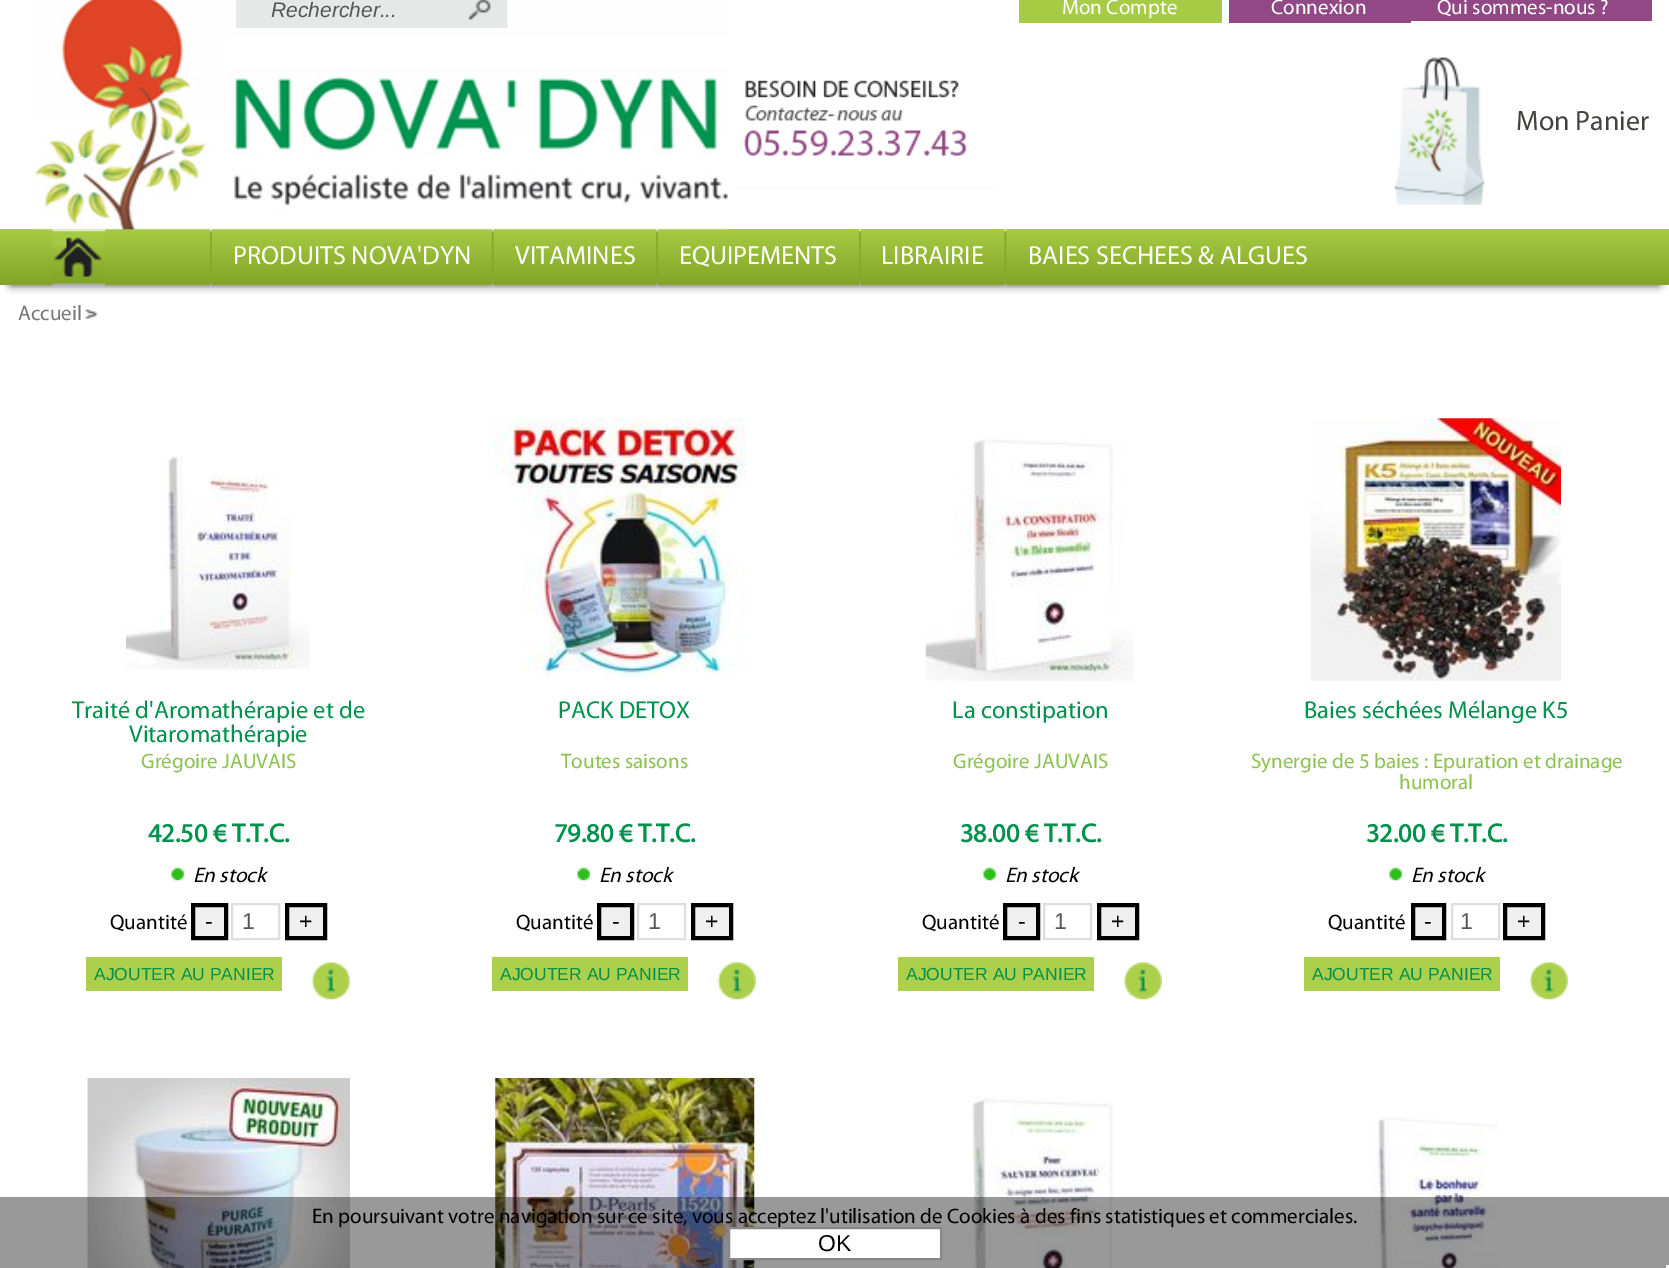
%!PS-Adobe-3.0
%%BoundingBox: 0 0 1669 1268
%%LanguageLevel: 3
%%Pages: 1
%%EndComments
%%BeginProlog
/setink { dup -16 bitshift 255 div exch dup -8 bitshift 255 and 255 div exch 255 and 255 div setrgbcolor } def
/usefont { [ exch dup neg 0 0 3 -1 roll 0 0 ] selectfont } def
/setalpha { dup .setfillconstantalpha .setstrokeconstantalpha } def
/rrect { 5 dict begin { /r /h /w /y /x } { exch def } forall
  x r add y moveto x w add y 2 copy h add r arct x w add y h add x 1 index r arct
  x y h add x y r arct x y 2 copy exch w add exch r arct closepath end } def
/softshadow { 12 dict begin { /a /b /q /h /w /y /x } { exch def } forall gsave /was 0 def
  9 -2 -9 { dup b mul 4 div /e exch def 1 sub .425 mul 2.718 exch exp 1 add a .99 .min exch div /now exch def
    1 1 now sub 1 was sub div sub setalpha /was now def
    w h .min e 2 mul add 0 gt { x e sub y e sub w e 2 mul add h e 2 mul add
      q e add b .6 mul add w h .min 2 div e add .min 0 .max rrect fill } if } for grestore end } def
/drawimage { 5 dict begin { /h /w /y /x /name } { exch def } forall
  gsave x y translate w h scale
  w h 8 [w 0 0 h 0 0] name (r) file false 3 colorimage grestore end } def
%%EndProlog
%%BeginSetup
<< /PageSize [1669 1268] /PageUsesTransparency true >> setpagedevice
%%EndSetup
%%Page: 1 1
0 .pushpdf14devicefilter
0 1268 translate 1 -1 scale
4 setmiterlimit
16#FFFFFF setink
0 0 1669 1268 rectfill
16#000000 setink
11 249 1648 35 0 4.5 1 softshadow
gsave 0 229 moveto 1669 229 lineto 1669 285 lineto 0 285 lineto closepath clip newpath
<< /ShadingType 2 /ColorSpace /DeviceRGB /Coords [835 229 835 285] /Extend [true true] /Function << /FunctionType 2 /Domain [0 1] /C0 [0.651 0.796 0.267] /C1 [0.51 0.647 0.149] /N 1 >> >> shfill grestore
(img5.raw) 52 229 53 58 drawimage
(img6.raw) 210 229 2 58 drawimage
(img7.raw) 491 229 3 58 drawimage
(img8.raw) 656 229 2 58 drawimage
(img2.raw) 35 0 693 230 drawimage
16#E6E8E7 setink
236 0 219 28 rectfill
/LiberationSans-Italic 21 usefont
16#555555 setink
271 17 moveto (Rechercher...) show
(img1.raw) 455 0 53 28 drawimage
(img3.raw) 735 80 262 109 drawimage
16#A6CB44 setink
1019 0 203 23 rectfill
/Myriad-Regular 21 usefont
16#FFFFFF setink
1062 14 moveto (Mon Compte) show
16#924884 setink
1229 0 182 23 rectfill
16#FFFFFF setink
1271 14 moveto (Connexion) show
(img4.raw) 1394 57 91 148 drawimage
/Myriad-Regular 28 usefont
16#42423F setink
1516 130 moveto (Mon Panier) show
/Myriad-Regular 26.25 usefont
16#FFFFFF setink
[
    [(PRODUITS NOVA'DYN) 233 264]
    [(VITAMINES) 515 264]
    [(EQUIPEMENTS) 679 264]
] { aload pop moveto show } forall
(img8.raw) 859 229 2 58 drawimage
881 264 moveto (LIBRAIRIE) show
(img9.raw) 1004 229 3 58 drawimage
1028 264 moveto (BAIES SECHEES & ALGUES) show
(img10.raw) 85 309 13 10 drawimage
/Myriad-Regular 21 usefont
16#777777 setink
18 320 moveto (Accueil) show
(img11.raw) 126 456 184 215 drawimage
/Myriad-Regular 24.5 usefont
16#00924D setink
72 718 moveto (Traité d'Aromathérapie et de) show
129 742 moveto (Vitaromathérapie) show
/Myriad-Regular 21 usefont
16#8BC14D setink
141 768 moveto (Grégoire JAUVAIS) show
/Myriad-Bold 26.25 usefont
16#00924D setink
148 842 moveto (42.50 € T.T.C.) show
(img12.raw) 171 867 13 14 drawimage
/Myriad-Italic 21 usefont
16#000000 setink
193 882 moveto (En stock) show
/Myriad-Regular 21 usefont
110 929 moveto (Quantité) show
16#EFEFEF setink
193 905 moveto 226 905 lineto 226 938 lineto 193 938 lineto closepath gsave fill grestore
16#000000 setink
4 setlinewidth
stroke
/LiberationSans-Regular 23 usefont
205 929 moveto (-) show
16#DEDEDE setink
2 setlinewidth
232 904 47 35 rectstroke
16#555555 setink
242 929 moveto (1) show
16#EFEFEF setink
287 905 moveto 325 905 lineto 325 938 lineto 287 938 lineto closepath gsave fill grestore
16#000000 setink
4 setlinewidth
stroke
299 929 moveto (+) show
16#ACD04C setink
86 957 196 34 rectfill
/LiberationSans-Regular 17.5 usefont
16#00924D setink
94 980 moveto (AJOUTER AU PANIER) show
(img13.raw) 311 962 39 38 drawimage
(img14.raw) 493 418 254 262 drawimage
/Myriad-Regular 24.5 usefont
558 718 moveto (PACK DETOX) show
/Myriad-Regular 21 usefont
16#8BC14D setink
561 768 moveto (Toutes saisons) show
/Myriad-Bold 26.25 usefont
16#00924D setink
554 842 moveto (79.80 € T.T.C.) show
(img15.raw) 577 867 13 14 drawimage
/Myriad-Italic 21 usefont
16#000000 setink
599 882 moveto (En stock) show
/Myriad-Regular 21 usefont
516 929 moveto (Quantité) show
16#EFEFEF setink
599 905 moveto 632 905 lineto 632 938 lineto 599 938 lineto closepath gsave fill grestore
16#000000 setink
stroke
/LiberationSans-Regular 23 usefont
612 929 moveto (-) show
16#DEDEDE setink
2 setlinewidth
638 904 47 35 rectstroke
16#555555 setink
648 929 moveto (1) show
16#EFEFEF setink
693 905 moveto 731 905 lineto 731 938 lineto 693 938 lineto closepath gsave fill grestore
16#000000 setink
4 setlinewidth
stroke
705 929 moveto (+) show
16#ACD04C setink
492 957 196 34 rectfill
/LiberationSans-Regular 17.5 usefont
16#00924D setink
500 980 moveto (AJOUTER AU PANIER) show
(img16.raw) 717 962 39 38 drawimage
(img17.raw) 925 439 209 242 drawimage
/Myriad-Regular 24.5 usefont
952 718 moveto (La constipation) show
/Myriad-Regular 21 usefont
16#8BC14D setink
953 768 moveto (Grégoire JAUVAIS) show
/Myriad-Bold 26.25 usefont
16#00924D setink
960 842 moveto (38.00 € T.T.C.) show
(img12.raw) 983 867 13 14 drawimage
/Myriad-Italic 21 usefont
16#000000 setink
1005 882 moveto (En stock) show
/Myriad-Regular 21 usefont
922 929 moveto (Quantité) show
16#EFEFEF setink
1005 905 moveto 1038 905 lineto 1038 938 lineto 1005 938 lineto closepath gsave fill grestore
16#000000 setink
stroke
/LiberationSans-Regular 23 usefont
1018 929 moveto (-) show
16#DEDEDE setink
2 setlinewidth
1044 904 47 35 rectstroke
16#555555 setink
1054 929 moveto (1) show
16#EFEFEF setink
1099 905 moveto 1137 905 lineto 1137 938 lineto 1099 938 lineto closepath gsave fill grestore
16#000000 setink
4 setlinewidth
stroke
1111 929 moveto (+) show
16#ACD04C setink
898 957 196 34 rectfill
/LiberationSans-Regular 17.5 usefont
16#00924D setink
906 980 moveto (AJOUTER AU PANIER) show
(img13.raw) 1123 962 39 38 drawimage
(img18.raw) 1310 418 251 263 drawimage
/Myriad-Regular 24.5 usefont
1304 718 moveto (Baies séchées Mélange K5) show
/Myriad-Regular 21 usefont
16#8BC14D setink
1251 768 moveto (Synergie de 5 baies : Epuration et drainage) show
1399 789 moveto (humoral) show
/Myriad-Bold 26.25 usefont
16#00924D setink
1366 842 moveto (32.00 € T.T.C.) show
(img12.raw) 1389 867 13 14 drawimage
/Myriad-Italic 21 usefont
16#000000 setink
1411 882 moveto (En stock) show
/Myriad-Regular 21 usefont
1328 929 moveto (Quantité) show
16#EFEFEF setink
1413 905 moveto 1444 905 lineto 1444 938 lineto 1413 938 lineto closepath gsave fill grestore
16#000000 setink
stroke
/LiberationSans-Regular 23 usefont
1424 929 moveto (-) show
16#DEDEDE setink
2 setlinewidth
1452 904 47 35 rectstroke
16#555555 setink
1460 929 moveto (1) show
16#EFEFEF setink
1505 905 moveto 1543 905 lineto 1543 938 lineto 1505 938 lineto closepath gsave fill grestore
16#000000 setink
4 setlinewidth
stroke
1517 929 moveto (+) show
16#ACD04C setink
1304 957 196 34 rectfill
/LiberationSans-Regular 17.5 usefont
16#00924D setink
1312 980 moveto (AJOUTER AU PANIER) show
(img13.raw) 1529 962 39 38 drawimage
(img19.raw) 87 1078 263 190 drawimage
(img20.raw) 495 1078 260 190 drawimage
(img21.raw) 968 1096 145 172 drawimage
(img22.raw) 1374 1117 125 151 drawimage
16#924884 setink
1411 0 241 21 rectfill
/Myriad-Regular 21 usefont
16#FFFFFF setink
1437 14 moveto (Qui sommes-nous ?) show
0.4 setalpha
16#000000 setink
0 1197 1669 71 rectfill
1 setalpha
312 1223 moveto (En poursuivant votre navigation sur ce site, vous acceptez l'utilisation de Cookies à des fins statistiques et commerciales.) show
16#FFFFFF setink
729 1228 moveto 941 1228 lineto 941 1259 lineto 729 1259 lineto closepath gsave fill grestore
16#888888 setink
2 setlinewidth
stroke
/LiberationSans-Regular 23 usefont
16#000000 setink
818 1251 moveto (OK) show
16#F5F5F5 setink
1666 1265 3 3 rectfill
.poppdf14devicefilter showpage
%%EOF
